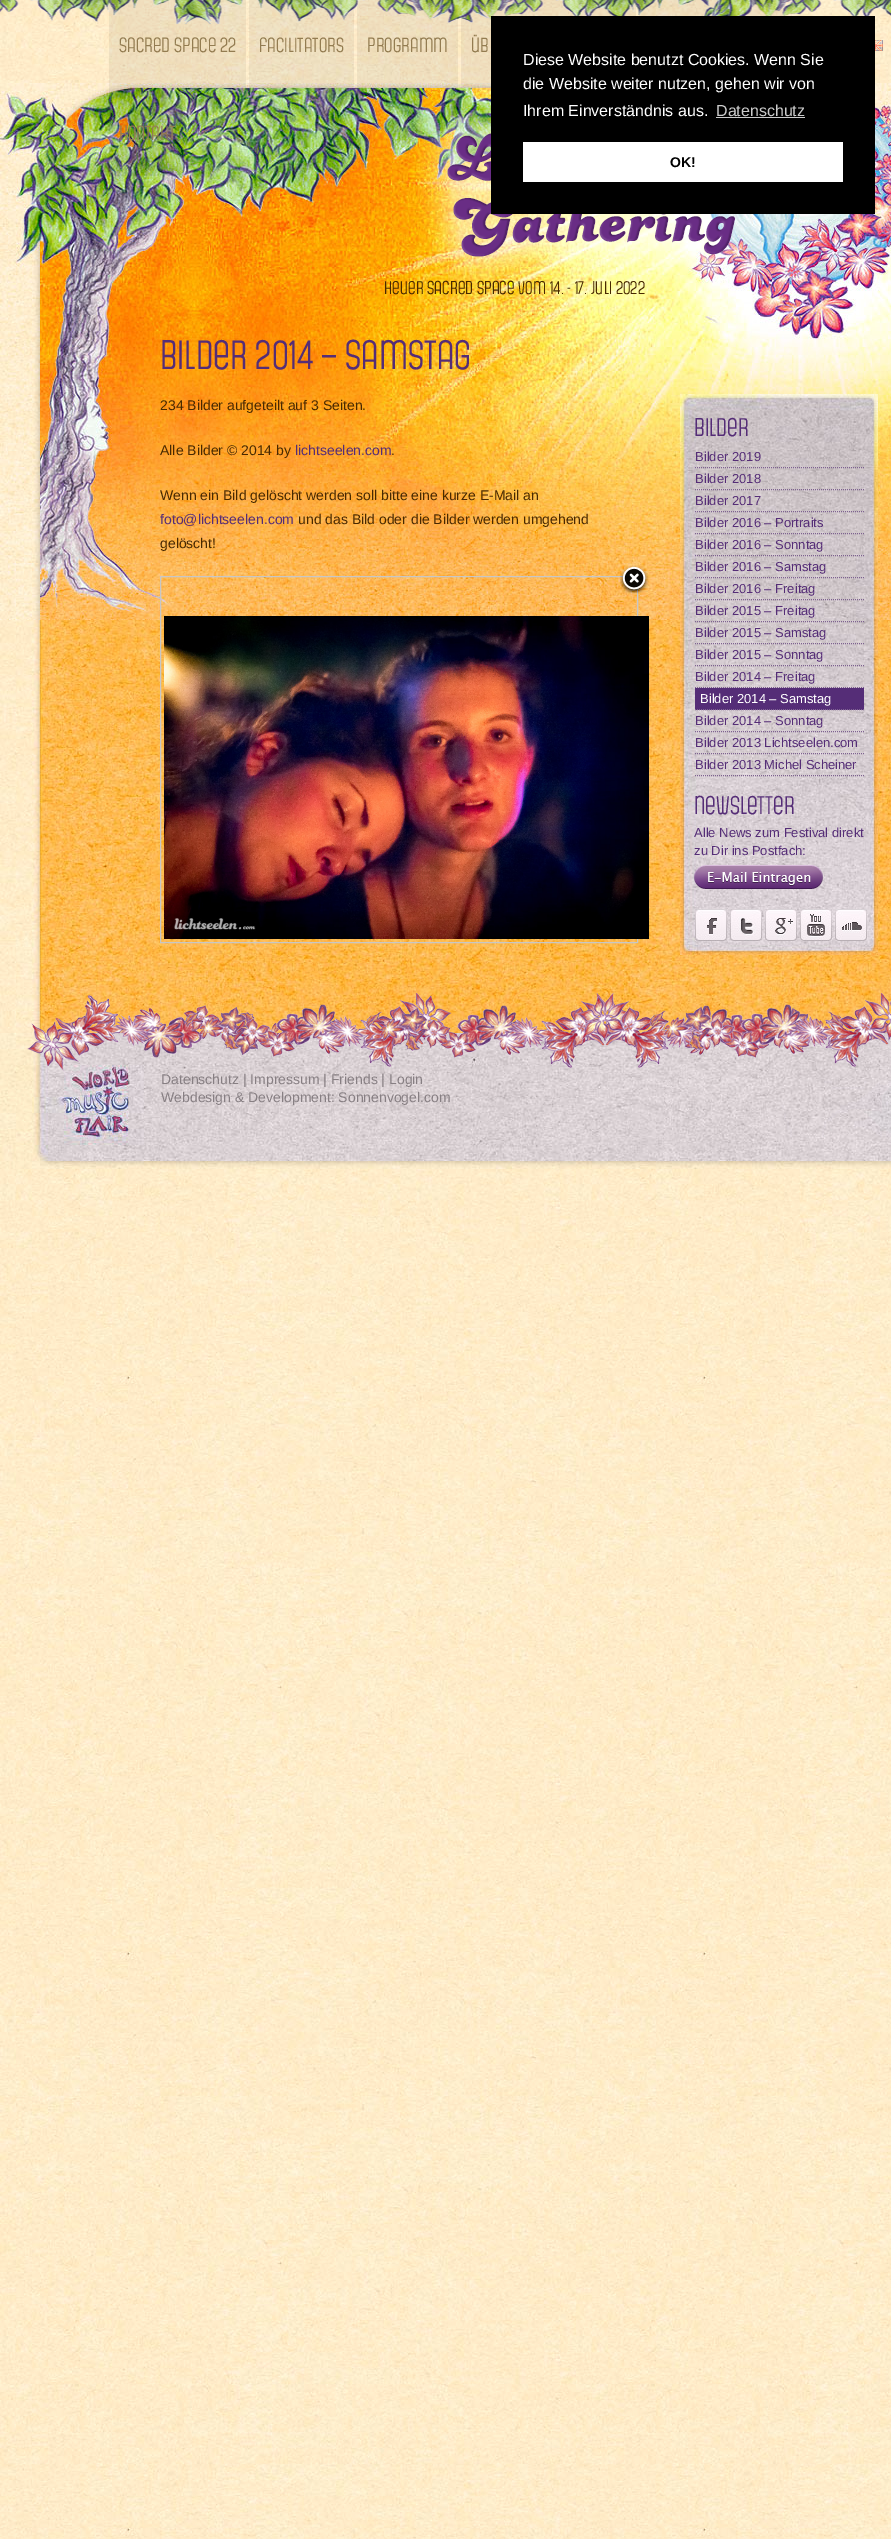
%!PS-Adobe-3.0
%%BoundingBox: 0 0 891 2539
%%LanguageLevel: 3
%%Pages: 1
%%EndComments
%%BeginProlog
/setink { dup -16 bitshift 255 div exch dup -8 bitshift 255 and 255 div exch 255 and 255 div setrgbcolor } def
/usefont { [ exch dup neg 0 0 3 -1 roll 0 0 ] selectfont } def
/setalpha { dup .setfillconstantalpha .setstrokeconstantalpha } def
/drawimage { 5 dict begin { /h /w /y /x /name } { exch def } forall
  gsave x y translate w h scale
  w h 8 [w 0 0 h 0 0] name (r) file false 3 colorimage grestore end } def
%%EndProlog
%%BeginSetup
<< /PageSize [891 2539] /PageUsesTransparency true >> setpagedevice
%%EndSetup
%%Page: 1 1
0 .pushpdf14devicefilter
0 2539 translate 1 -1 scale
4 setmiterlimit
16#FFFFFF setink
0 0 891 2539 rectfill
(img1.raw) 0 0 891 2539 drawimage
0.06 setalpha
16#000000 setink
639 0 79 16 rectfill
745 2 40 14 rectfill
1 setalpha
(img5.raw) 0 83 891 537 drawimage
0.06 setalpha
[
    [109 0 137 88 16#000000]
    [249 0 105 88 16#000000]
    [357 0 101 88 16#000000]
    [461 0 175 88 16#000000]
] { aload pop setink rectfill } forall
1 setalpha
(img2.raw) 0 0 891 24 drawimage
/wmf-Regular 20 usefont
16#937C51 setink
[
    [(SACRED SPACE 22) 119 52]
    [(Facilitators) 259 52]
    [(Programm) 367 52]
    [(Üb) 471 52]
] { aload pop moveto show } forall
0.06 setalpha
16#000000 setink
109 88 76 88 rectfill
1 setalpha
16#937C51 setink
119 140 moveto (Kontakt) show
(img3.raw) 875 40 8 11 drawimage
(img6.raw) 416 110 357 170 drawimage
16#000000 setink
491 16 384 198 rectfill
/LiberationSans-Regular 16 usefont
16#FFFFFF setink
[
    [(Diese Website benutzt Cookies. Wenn Sie) 523 65]
    [(die Website weiter nutzen, gehen wir von) 523 89]
    [(Ihrem Einverständnis aus.) 523 116]
] { aload pop moveto show } forall
16#CCCCCC setink
716 116 moveto (Datenschutz) show
716 117 89 1 rectfill
16#FFFFFF setink
523 142 320 40 rectfill
/LiberationSans-Bold 14 usefont
16#000000 setink
670 167 moveto (OK!) show
(img4.raw) 0 620 891 413 drawimage
/wmf-Regular 18 usefont
16#482901 setink
384 294 moveto (heuer SACRED SPACE vom 14. - 17. Juli 2022) show
/wmf-Regular 40 usefont
16#552D77 setink
160 369 moveto (Bilder 2014 – Samstag) show
/LiberationSans-Regular 14 usefont
16#482901 setink
160 410 moveto (234 Bilder aufgeteilt auf 3 Seiten.) show
160 455 moveto (Alle Bilder © 2014 by) show
16#552D77 setink
295 455 moveto (lichtseelen.com) show
16#482901 setink
391 455 moveto (.) show
160 500 moveto (Wenn ein Bild gelöscht werden soll bitte eine kurze E-Mail an) show
16#552D77 setink
160 524 moveto (foto@lichtseelen.com) show
16#482901 setink
298 524 moveto (und das Bild oder die Bilder werden umgehend) show
160 548 moveto (gelöscht!) show
16#C7C7C7 setink
160.5 576.5 477 366 rectstroke
(img7.raw) 620 565 29 29 drawimage
(img8.raw) 164 616 485 323 drawimage
(img9.raw) 680 394 198 551 drawimage
/wmf-Regular 25 usefont
16#552D77 setink
694 436 moveto (Bilder) show
16#7E6291 setink
[1 1] 0 setdash
695 467.5 moveto 864 467.5 lineto stroke
/LiberationSans-Regular 13 usefont
16#552D77 setink
695 461 moveto (Bilder 2019) show
16#7E6291 setink
695 489.5 moveto 864 489.5 lineto stroke
16#552D77 setink
695 483 moveto (Bilder 2018) show
16#7E6291 setink
695 511.5 moveto 864 511.5 lineto stroke
16#552D77 setink
695 505 moveto (Bilder 2017) show
16#7E6291 setink
695 533.5 moveto 864 533.5 lineto stroke
16#552D77 setink
695 527 moveto (Bilder 2016 – Portraits) show
16#7E6291 setink
695 555.5 moveto 864 555.5 lineto stroke
16#552D77 setink
695 549 moveto (Bilder 2016 – Sonntag) show
16#7E6291 setink
695 577.5 moveto 864 577.5 lineto stroke
16#552D77 setink
695 571 moveto (Bilder 2016 – Samstag) show
16#7E6291 setink
695 599.5 moveto 864 599.5 lineto stroke
16#552D77 setink
695 593 moveto (Bilder 2016 – Freitag) show
16#7E6291 setink
695 621.5 moveto 864 621.5 lineto stroke
16#552D77 setink
695 615 moveto (Bilder 2015 – Freitag) show
16#7E6291 setink
695 643.5 moveto 864 643.5 lineto stroke
16#552D77 setink
695 637 moveto (Bilder 2015 – Samstag) show
16#7E6291 setink
695 665.5 moveto 864 665.5 lineto stroke
16#552D77 setink
695 659 moveto (Bilder 2015 – Sonntag) show
16#7E6291 setink
695 687.5 moveto 864 687.5 lineto stroke
16#552D77 setink
695 681 moveto (Bilder 2014 – Freitag) show
695 688 169 22 rectfill
16#7E6291 setink
695 709.5 moveto 864 709.5 lineto stroke
16#FFFFFF setink
700 703 moveto (Bilder 2014 – Samstag) show
16#7E6291 setink
695 731.5 moveto 864 731.5 lineto stroke
16#552D77 setink
695 725 moveto (Bilder 2014 – Sonntag) show
16#7E6291 setink
695 753.5 moveto 864 753.5 lineto stroke
16#552D77 setink
695 747 moveto (Bilder 2013 Lichtseelen.com) show
16#7E6291 setink
695 775.5 moveto 864 775.5 lineto stroke
16#552D77 setink
695 769 moveto (Bilder 2013 Michel Scheiner) show
/wmf-Regular 25 usefont
694 814 moveto (Newsletter) show
/LiberationSans-Regular 13 usefont
694 837 moveto (Alle News zum Festival direkt) show
694 855 moveto (zu Dir ins Postfach:) show
(img10.raw) 694 865 129 24 drawimage
(img11.raw) 695 909 32 32 drawimage
(img12.raw) 730 909 32 32 drawimage
(img13.raw) 765 909 32 32 drawimage
(img14.raw) 800 909 32 32 drawimage
(img15.raw) 835 909 32 32 drawimage
(img16.raw) 680 945 198 10 drawimage
(img17.raw) 0 1033 891 136 drawimage
(img18.raw) 27 993 864 79 drawimage
/LiberationSans-Regular 14 usefont
16#877F83 setink
161 1084 moveto (Datenschutz | Impressum | Friends | Login) show
161 1102 moveto (Webdesign & Development: Sonnenvogel.com) show
.poppdf14devicefilter showpage
%%EOF
